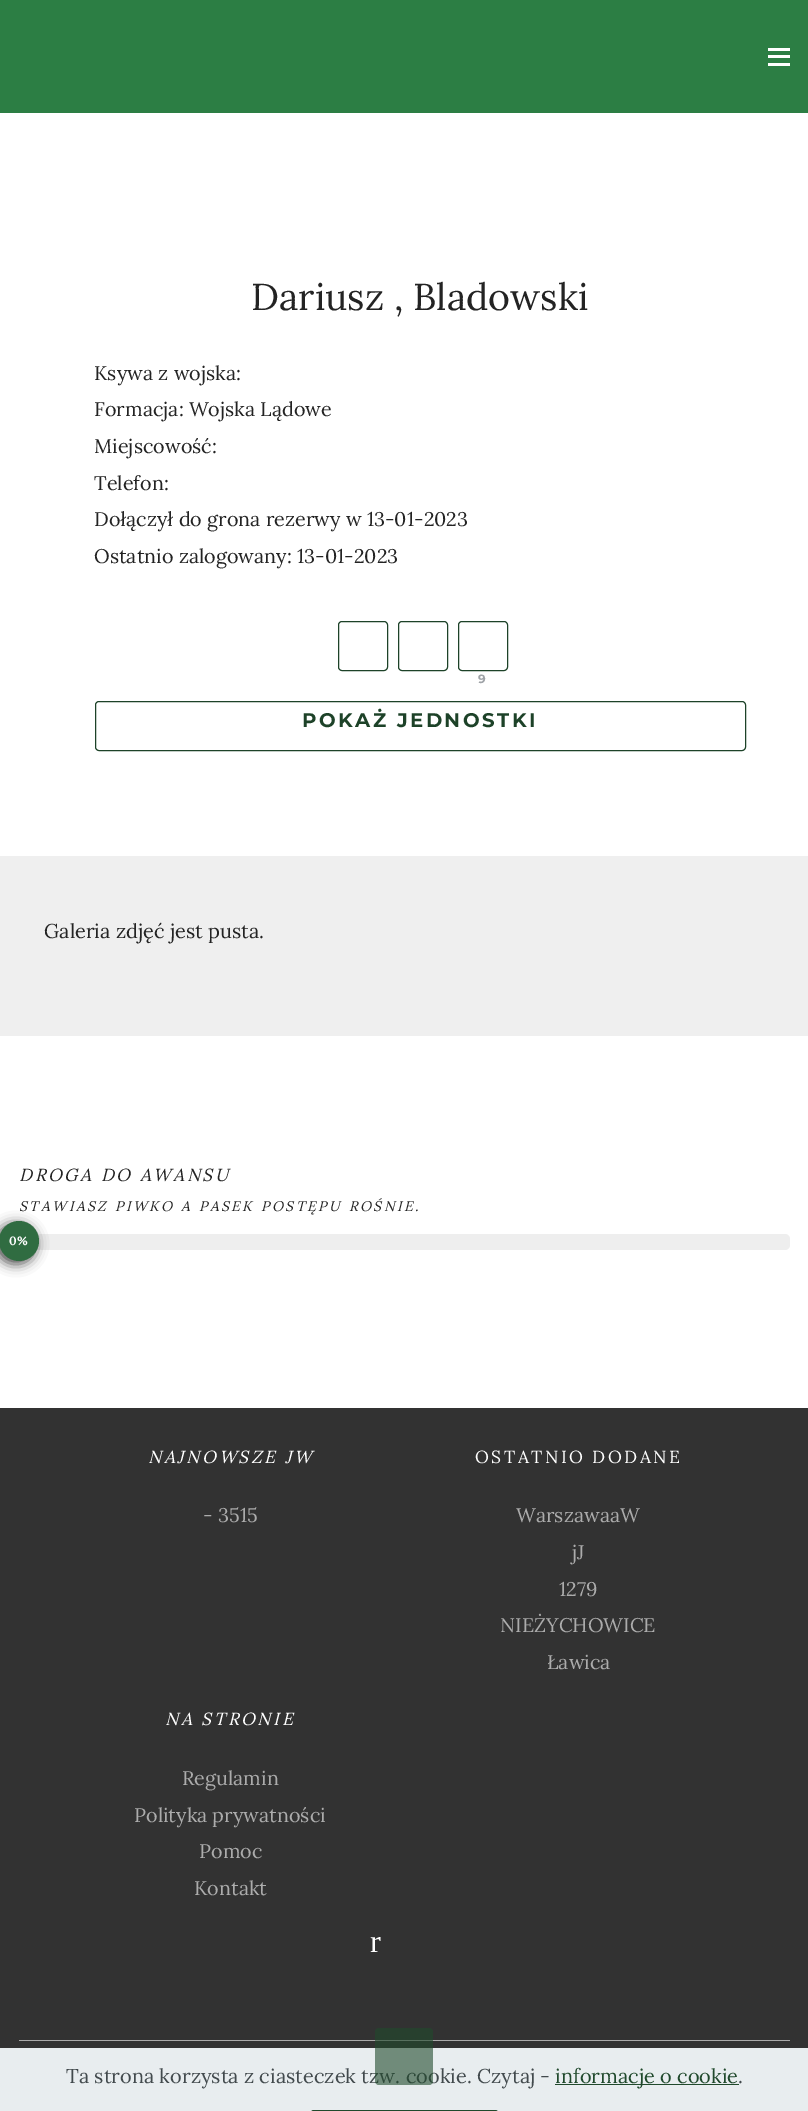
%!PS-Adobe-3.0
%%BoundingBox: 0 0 808 2111
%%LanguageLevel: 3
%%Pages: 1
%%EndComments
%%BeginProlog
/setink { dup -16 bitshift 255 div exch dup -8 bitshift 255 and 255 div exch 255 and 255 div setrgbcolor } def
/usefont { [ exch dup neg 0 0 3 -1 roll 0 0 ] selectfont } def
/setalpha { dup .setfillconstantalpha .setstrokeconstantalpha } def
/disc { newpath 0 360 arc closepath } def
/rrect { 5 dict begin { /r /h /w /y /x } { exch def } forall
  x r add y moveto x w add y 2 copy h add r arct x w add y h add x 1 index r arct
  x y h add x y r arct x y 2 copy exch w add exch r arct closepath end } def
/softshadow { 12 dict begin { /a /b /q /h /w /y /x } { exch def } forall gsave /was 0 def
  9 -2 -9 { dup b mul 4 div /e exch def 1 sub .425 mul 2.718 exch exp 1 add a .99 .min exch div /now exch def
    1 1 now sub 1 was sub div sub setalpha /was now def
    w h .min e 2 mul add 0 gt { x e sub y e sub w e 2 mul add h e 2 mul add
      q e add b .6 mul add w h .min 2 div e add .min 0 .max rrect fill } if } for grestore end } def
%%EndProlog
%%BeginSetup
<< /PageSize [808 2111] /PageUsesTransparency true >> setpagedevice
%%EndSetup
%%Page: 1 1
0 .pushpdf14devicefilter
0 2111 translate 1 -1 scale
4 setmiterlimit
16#FFFFFF setink
0 0 808 2111 rectfill
[
    [0 0 808 113 16#2C7E44]
    [768 63 22 3 16#FFFFFF]
    [768 55 22 3 16#FFFFFF]
    [768 48 22 3 16#FFFFFF]
] { aload pop setink rectfill } forall
/Lora-Regular 37.5 usefont
16#232323 setink
251 310 moveto (Dariusz , Bladowski) show
/Lora-Regular 19.75 usefont
[
    [(Ksywa z wojska:) 94 380]
    [(Formacja: Wojska Lądowe) 94 416]
    [(Miejscowość:) 94 453]
    [(Telefon:) 94 490]
    [(Dołączył do grona rezerwy w 13-01-2023) 94 526]
    [(Ostatnio zalogowany: 13-01-2023) 94 563]
] { aload pop moveto show } forall
16#1D4228 setink
338.5 621.5 49 49 3.5 rrect stroke
398.5 621.5 49 49 3.5 rrect stroke
458.5 621.5 49 49 3.5 rrect stroke
/Montserrat-Bold 12 usefont
16#9FA3A7 setink
478 683 moveto 2.5 0 (9) ashow
16#1D4228 setink
95.5 701.5 650 49 3.5 rrect stroke
/Montserrat-Bold 19.75 usefont
302 727 moveto 2.5 0 (POKAŻ JEDNOSTKI) ashow
16#EFEFEF setink
0 856 808 180 rectfill
/Lora-Regular 20 usefont
16#232323 setink
44 938 moveto (Galeria zdjęć jest pusta.) show
/Lora-Italic 17.5 usefont
19 1181 moveto 2.5 0 (DROGA DO AWANSU) ashow
/Lora-Italic 14 usefont
19 1211 moveto 2.5 0 (STAWIASZ PIWKO A PASEK POSTĘPU ROŚNIE.) ashow
16#EEEEEE setink
19 1234 771 16 5 rrect fill
16#000000 setink
-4 1224 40 40 20 6 0.71 softshadow
16#306C41 setink
19 1241 20 disc fill
/Lora-Bold 12 usefont
16#FFFFFF setink
9 1245 moveto (0%) show
16#323232 setink
0 1408 808 640 rectfill
/Lora-Italic 17.5 usefont
16#FFFFFF setink
148 1463 moveto 2.5 0 (NAJNOWSZE JW) ashow
/Lora-Regular 19.75 usefont
16#ACACAC setink
203 1522 moveto (- 3515) show
/Lora-Regular 17.5 usefont
16#FFFFFF setink
475 1463 moveto 2.5 0 (OSTATNIO DODANE) ashow
/Lora-Regular 19.75 usefont
16#ACACAC setink
[
    [(WarszawaaW) 516 1522]
    [(jJ) 572 1559]
    [(1279) 559 1596]
    [(NIEŻYCHOWICE) 500 1632]
    [(Ławica) 547 1669]
] { aload pop moveto show } forall
/Lora-Italic 17.5 usefont
16#FFFFFF setink
165 1725 moveto 2.5 0 (NA STRONIE) ashow
/Lora-Regular 19.75 usefont
16#ACACAC setink
[
    [(Regulamin) 182 1785]
    [(Polityka prywatności) 134 1822]
    [(Pomoc) 199 1858]
    [(Kontakt) 194 1895]
] { aload pop moveto show } forall
/LiberationSerif-Regular 32 usefont
16#FFFFFF setink
370 1952 moveto 2.5 0 (r) ashow
16#AAAAAA setink
19 2040 771 1 rectfill
16#E8EDEF setink
0 2048 808 63 rectfill
/Lora-Regular 20 usefont
16#424A4D setink
66 2083 moveto (Ta strona korzysta z ciasteczek tzw. cookie. Czytaj -) show
0.6 setalpha
16#20492C setink
375 2028 58 57 4 rrect fill
1 setalpha
555 2084 184 1 rectfill
555 2083 moveto (informacje o cookie) show
16#424A4D setink
738 2083 moveto (.) show
16#20492C setink
310.5 2110.5 188 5 3.5 rrect stroke
.poppdf14devicefilter showpage
%%EOF
